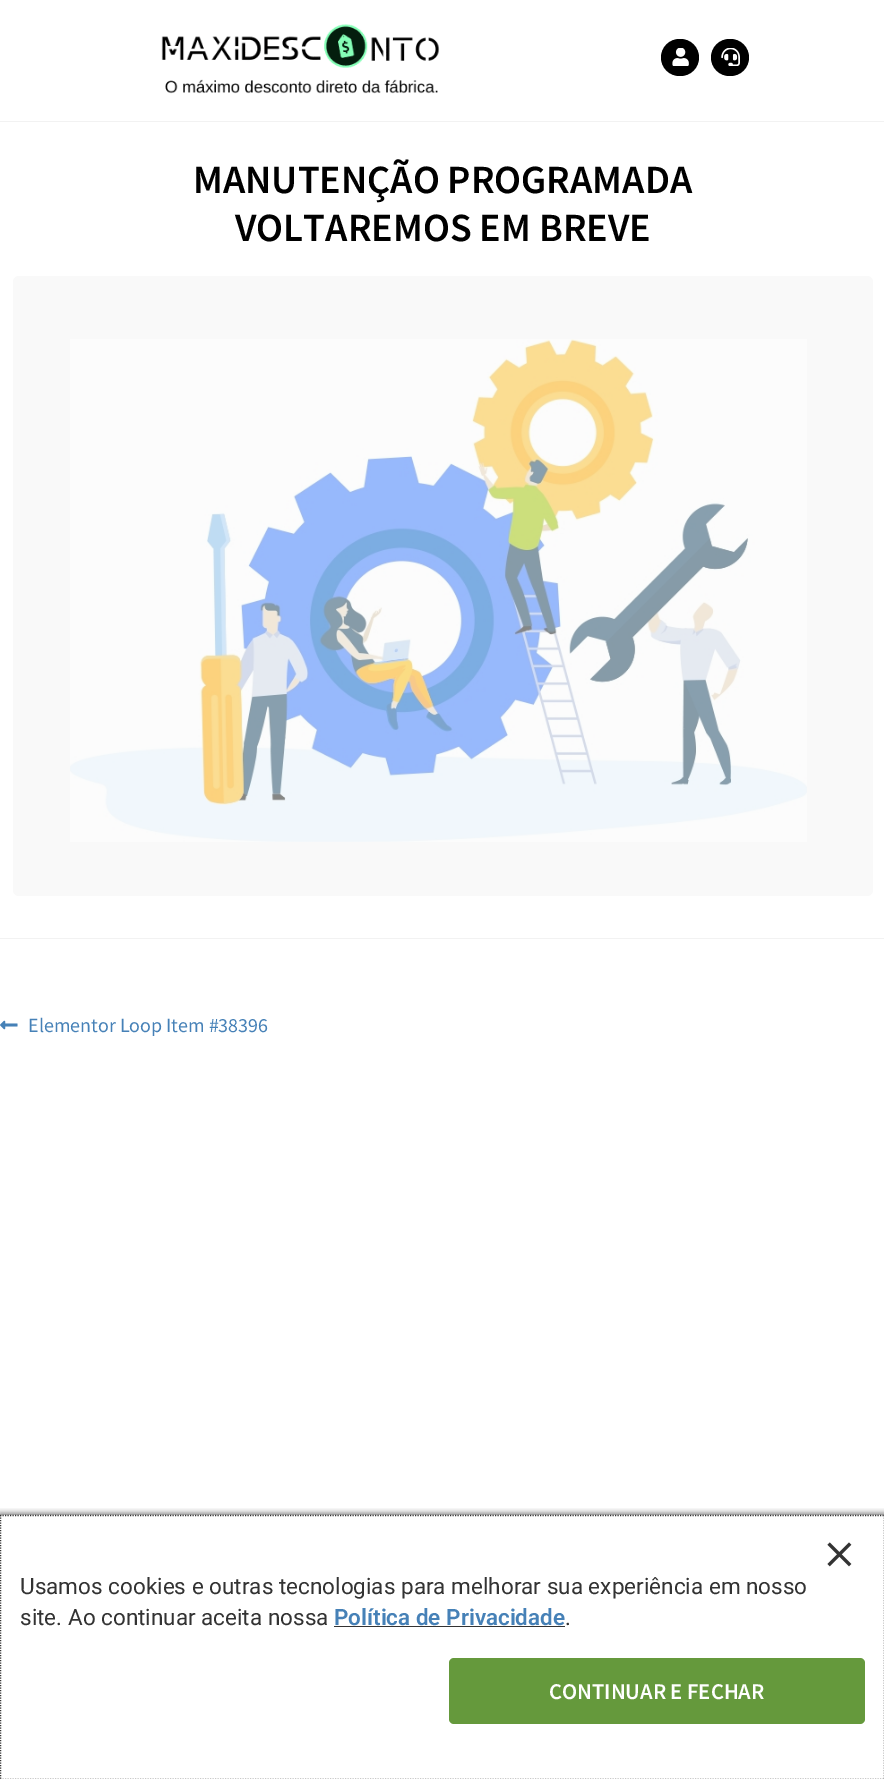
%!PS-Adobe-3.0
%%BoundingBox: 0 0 884 1779
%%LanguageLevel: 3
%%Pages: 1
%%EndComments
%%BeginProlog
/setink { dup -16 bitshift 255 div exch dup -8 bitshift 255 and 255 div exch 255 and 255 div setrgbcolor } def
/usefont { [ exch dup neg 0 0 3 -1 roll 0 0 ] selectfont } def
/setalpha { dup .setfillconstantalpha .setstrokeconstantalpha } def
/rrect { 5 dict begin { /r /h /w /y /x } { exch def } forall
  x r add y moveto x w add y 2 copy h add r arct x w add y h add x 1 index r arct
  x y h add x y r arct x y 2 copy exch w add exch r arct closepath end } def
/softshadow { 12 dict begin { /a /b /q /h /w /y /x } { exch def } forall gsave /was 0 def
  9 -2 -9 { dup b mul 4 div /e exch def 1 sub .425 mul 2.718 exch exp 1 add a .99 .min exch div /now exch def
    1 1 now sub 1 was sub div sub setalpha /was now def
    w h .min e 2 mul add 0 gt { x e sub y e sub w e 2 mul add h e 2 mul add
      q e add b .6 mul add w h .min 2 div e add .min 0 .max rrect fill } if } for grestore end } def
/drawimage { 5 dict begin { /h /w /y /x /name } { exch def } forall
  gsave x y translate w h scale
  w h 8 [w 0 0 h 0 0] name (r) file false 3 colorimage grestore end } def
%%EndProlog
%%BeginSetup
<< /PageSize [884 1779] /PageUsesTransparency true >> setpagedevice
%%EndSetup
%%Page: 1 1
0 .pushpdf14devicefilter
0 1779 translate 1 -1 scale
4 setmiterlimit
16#FFFFFF setink
0 0 884 1779 rectfill
(img1.raw) 161 24 279 70 drawimage
16#000000 setink
661 39 38 37 18.5 rrect fill
(img2.raw) 672 48 17 18 drawimage
711 39 38 37 18.5 rrect fill
(img3.raw) 721 48 19 18 drawimage
16#F2F2F2 setink
0 121 884 1 rectfill
/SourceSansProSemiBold-SemiBold 40 usefont
16#000000 setink
193 193 moveto (MANUTENÇÃO PROGRAMADA) show
235 241 moveto (VOLTAREMOS EM BREVE) show
16#F9F9F9 setink
13 276 860 620 6 rrect fill
(img4.raw) 70 339 737 503 drawimage
16#F2F2F2 setink
0 938 884 1 rectfill
(img5.raw) 0 1020 18 10 drawimage
/SourceSansPro-Regular 20 usefont
16#4681B7 setink
28 1032 moveto (Elementor Loop Item #38396) show
gsave
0 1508 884 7 rectclip
16#000000 setink
0 1513 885 265 0 3 0.5 softshadow
grestore
16#333333 setink
1.2 setlinewidth
[1.25 1.25] 0 setdash
0 1515.5 moveto 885 1515.5 lineto stroke
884.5 1515 moveto 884.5 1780 lineto stroke
0 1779.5 moveto 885 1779.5 lineto stroke
0.5 1515 moveto 0.5 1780 lineto stroke
(img6.raw) 827 1542 25 25 drawimage
/Roboto-Regular 22.5 usefont
20 1594 moveto (Usamos cookies e outras tecnologias para melhorar sua experiência em nosso) show
20 1625 moveto (site. Ao continuar aceita nossa) show
/Roboto-SemiBold 22.5 usefont
16#4681B7 setink
334 1625 moveto (Política de Privacidade) show
16#333333 setink
334 1626 231 1 rectfill
/Roboto-Regular 22.5 usefont
565 1625 moveto (.) show
16#65993C setink
449 1658 416 66 5 rrect fill
/SourceSansProSemiBold-SemiBold 22.5 usefont
16#FFFFFF setink
549 1699 moveto (CONTINUAR E FECHAR) show
.poppdf14devicefilter showpage
%%EOF
